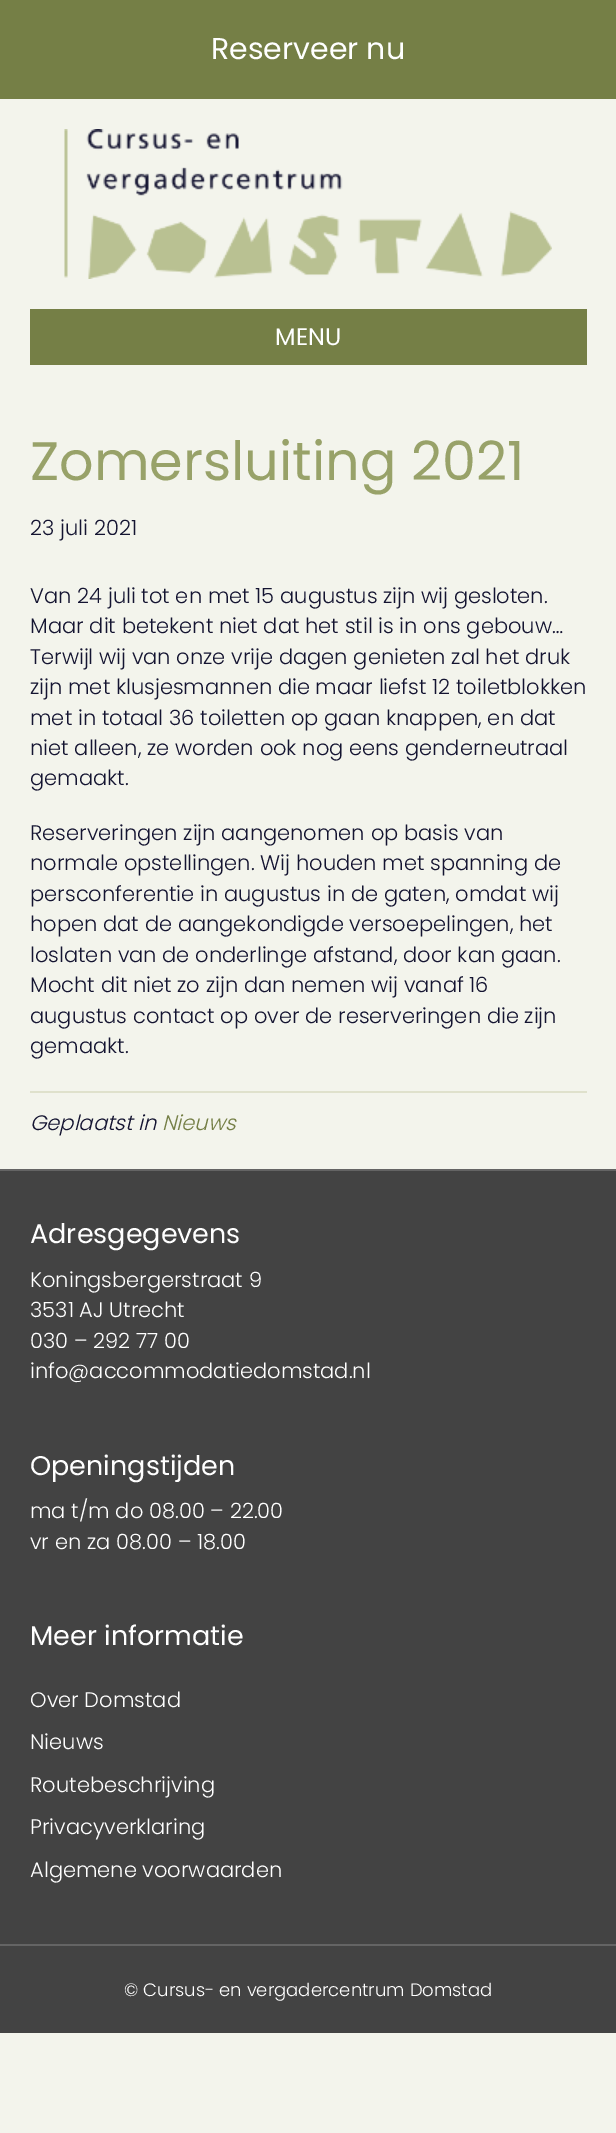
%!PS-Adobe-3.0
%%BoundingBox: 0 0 616 2133
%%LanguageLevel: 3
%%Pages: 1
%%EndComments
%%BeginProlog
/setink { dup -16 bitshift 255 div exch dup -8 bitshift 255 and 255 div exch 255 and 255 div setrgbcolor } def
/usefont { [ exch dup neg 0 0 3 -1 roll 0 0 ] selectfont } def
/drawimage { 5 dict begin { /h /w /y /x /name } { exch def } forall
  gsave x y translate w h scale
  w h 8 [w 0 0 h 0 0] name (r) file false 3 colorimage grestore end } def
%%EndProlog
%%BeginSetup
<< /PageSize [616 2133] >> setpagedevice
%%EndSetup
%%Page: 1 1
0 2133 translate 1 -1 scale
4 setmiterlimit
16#F3F4EC setink
0 0 616 2133 rectfill
16#757F46 setink
0 0 616 99 rectfill
/Poppins-Regular 30 usefont
16#FFFFFF setink
211 59 moveto (Reserveer nu) show
(img1.raw) 64 129 488 150 drawimage
16#757F46 setink
30 309 557 56 rectfill
/Poppins-Regular 24 usefont
16#FFFFFF setink
275 345 moveto (MENU) show
/Poppins-Regular 54 usefont
16#98A269 setink
30 480 moveto (Zomersluiting 2021) show
/Poppins-Light 21 usefont
16#141431 setink
[
    [(23 juli 2021) 30 535]
    [(Van 24 juli tot en met 15 augustus zijn wij gesloten.) 30 603]
    [(Maar dit betekent niet dat het stil is in ons gebouw…) 30 633]
    [(Terwijl wij van onze vrije dagen genieten zal het druk) 30 664]
    [(zijn met klusjesmannen die maar liefst 12 toiletblokken) 30 694]
    [(met in totaal 36 toiletten op gaan knappen, en dat) 30 725]
    [(niet alleen, ze worden ook nog eens genderneutraal) 30 755]
    [(gemaakt.) 30 785]
    [(Reserveringen zijn aangenomen op basis van) 30 840]
    [(normale opstellingen. Wij houden met spanning de) 30 870]
    [(persconferentie in augustus in de gaten, omdat wij) 30 901]
    [(hopen dat de aangekondigde versoepelingen, het) 30 931]
    [(loslaten van de onderlinge afstand, door kan gaan.) 30 962]
    [(Mocht dit niet zo zijn dan nemen wij vanaf 16) 30 992]
    [(augustus contact op over de reserveringen die zijn) 30 1023]
    [(gemaakt.) 30 1053]
] { aload pop moveto show } forall
16#DFE1CC setink
30 1091 557 2 rectfill
/Poppins-LightItalic 21 usefont
16#141431 setink
30 1130 moveto (Geplaatst in) show
16#757F46 setink
162 1130 moveto (Nieuws) show
16#434343 setink
0 1171 616 773 rectfill
16#646464 setink
0 1169 616 2 rectfill
/Poppins-Regular 27 usefont
16#FFFFFF setink
30 1243 moveto (Adresgegevens) show
/Poppins-Light 21 usefont
[
    [(Koningsbergerstraat 9) 30 1287]
    [(3531 AJ Utrecht) 30 1317]
    [(030 – 292 77 00) 30 1348]
    [(info@accommodatiedomstad.nl) 30 1378]
] { aload pop moveto show } forall
/Poppins-Regular 27 usefont
30 1475 moveto (Openingstijden) show
/Poppins-Light 21 usefont
30 1518 moveto (ma t/m do 08.00 – 22.00) show
30 1549 moveto (vr en za 08.00 – 18.00) show
/Poppins-Regular 27 usefont
30 1645 moveto (Meer informatie) show
/Poppins-Light 21 usefont
[
    [(Over Domstad) 30 1707]
    [(Nieuws) 30 1749]
    [(Routebeschrijving) 30 1792]
    [(Privacyverklaring) 30 1834]
    [(Algemene voorwaarden) 30 1877]
] { aload pop moveto show } forall
16#434343 setink
0 1946 616 87 rectfill
16#646464 setink
0 1944 616 2 rectfill
/Poppins-Light 18 usefont
16#FFFFFF setink
124 1996 moveto (© Cursus- en vergadercentrum Domstad) show
showpage
%%EOF
